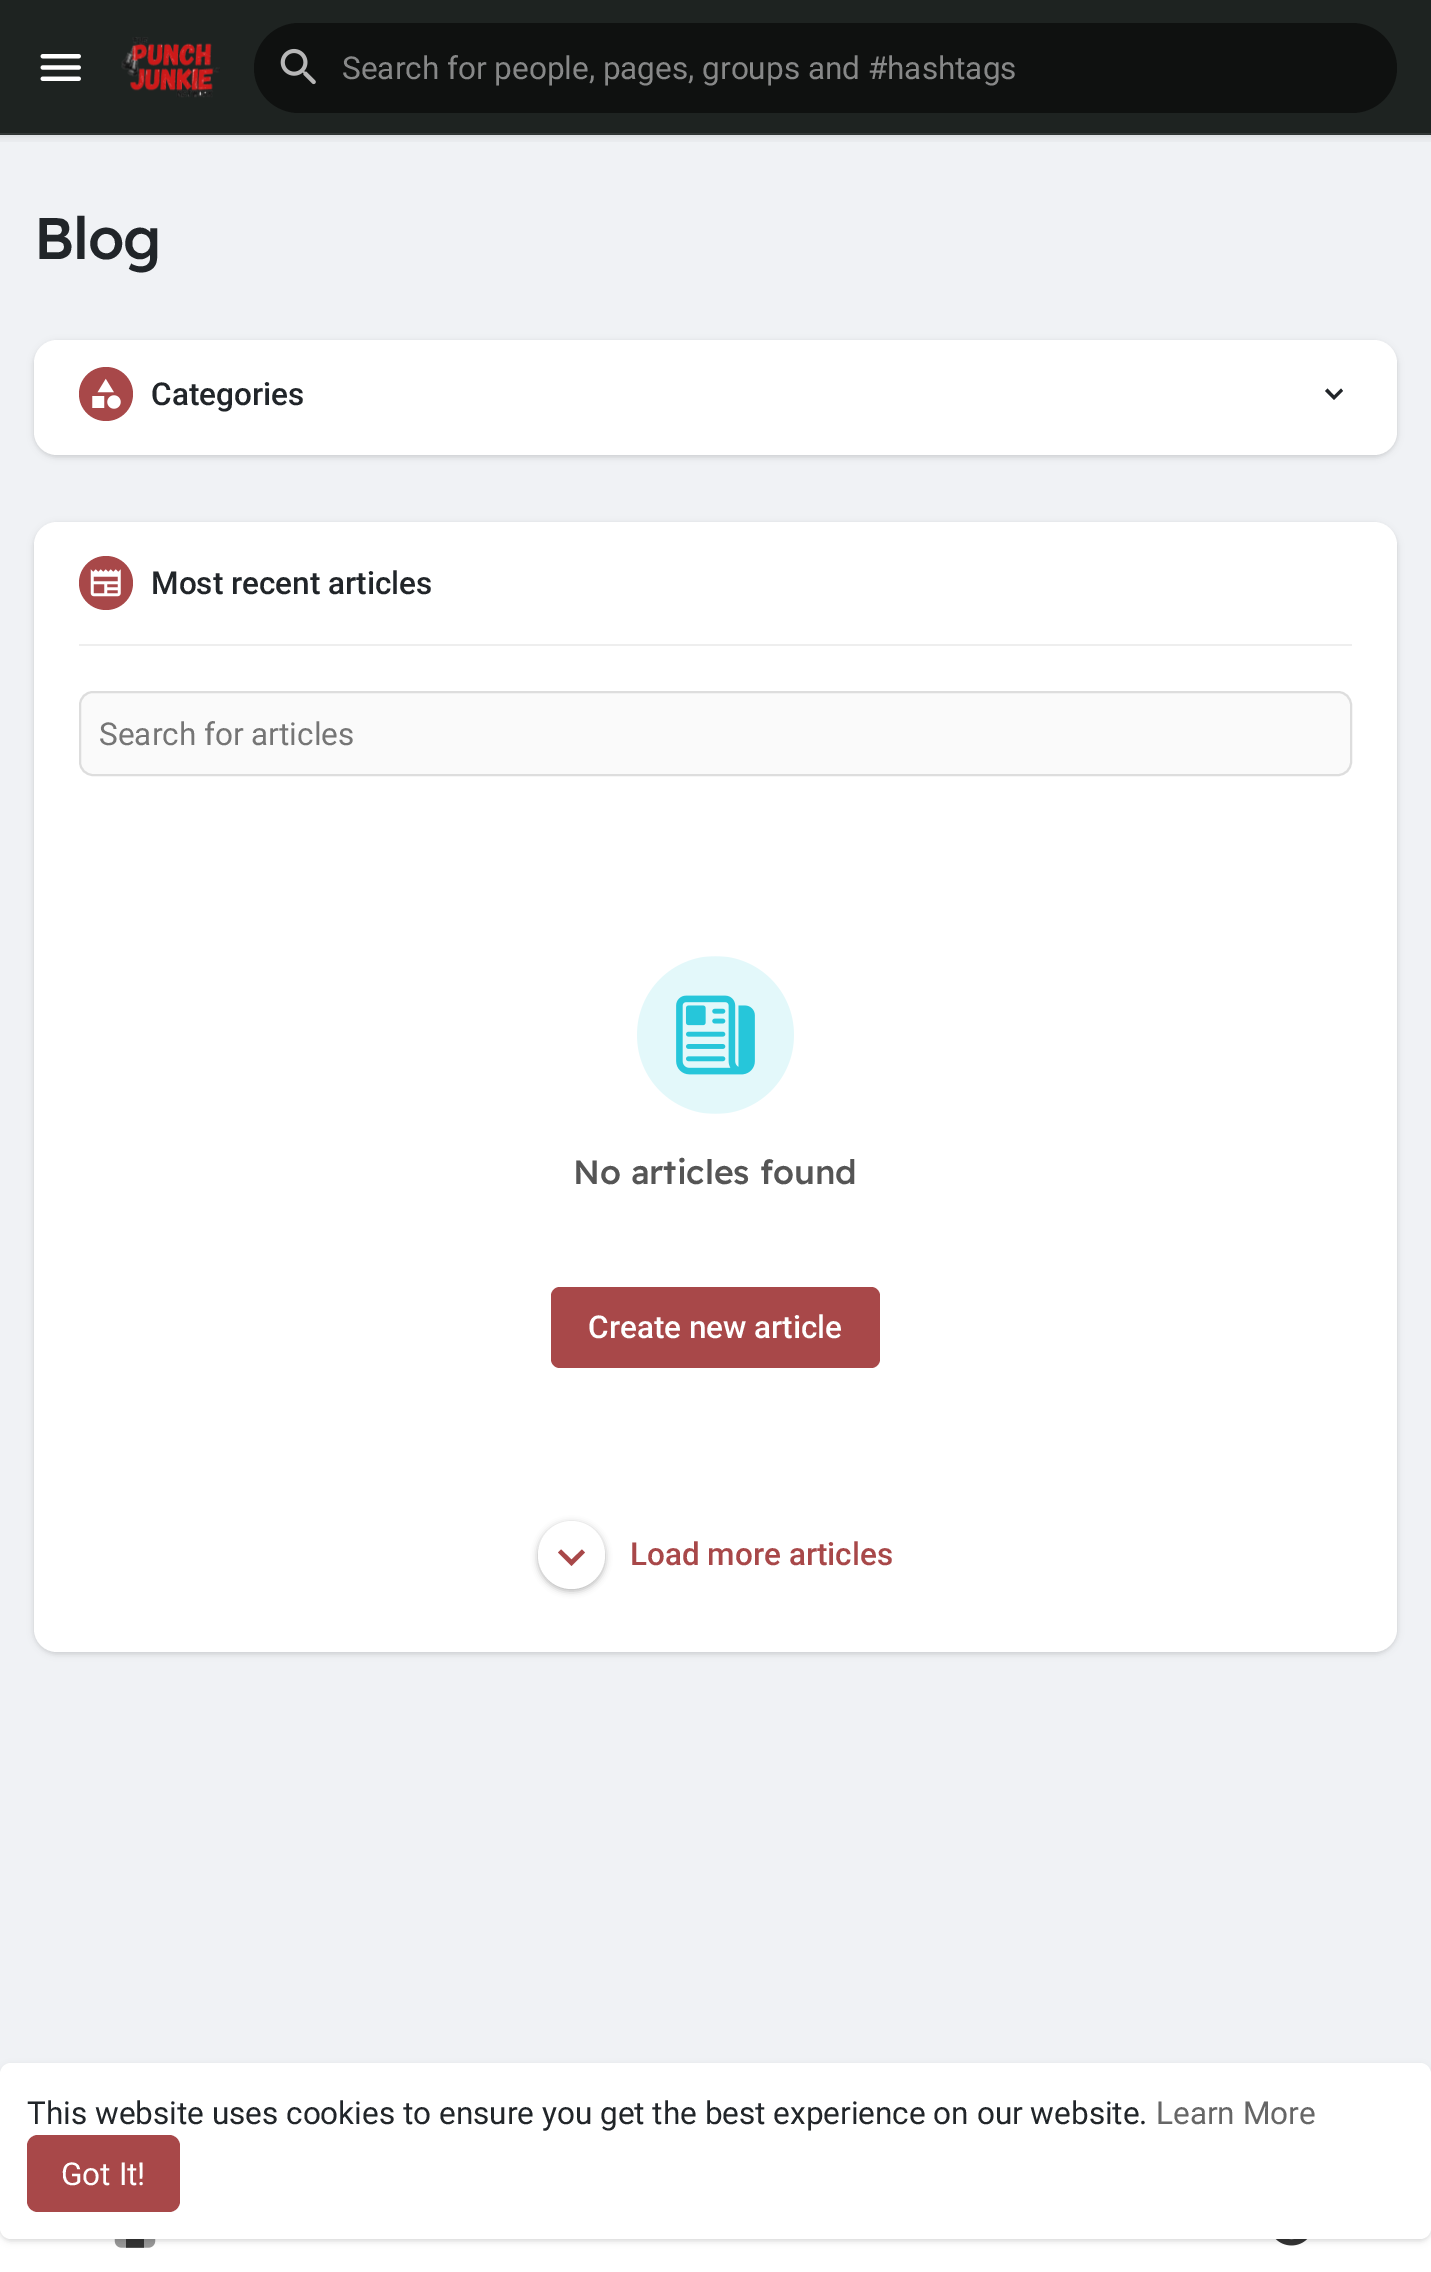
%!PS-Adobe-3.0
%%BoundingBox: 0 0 1431 2272
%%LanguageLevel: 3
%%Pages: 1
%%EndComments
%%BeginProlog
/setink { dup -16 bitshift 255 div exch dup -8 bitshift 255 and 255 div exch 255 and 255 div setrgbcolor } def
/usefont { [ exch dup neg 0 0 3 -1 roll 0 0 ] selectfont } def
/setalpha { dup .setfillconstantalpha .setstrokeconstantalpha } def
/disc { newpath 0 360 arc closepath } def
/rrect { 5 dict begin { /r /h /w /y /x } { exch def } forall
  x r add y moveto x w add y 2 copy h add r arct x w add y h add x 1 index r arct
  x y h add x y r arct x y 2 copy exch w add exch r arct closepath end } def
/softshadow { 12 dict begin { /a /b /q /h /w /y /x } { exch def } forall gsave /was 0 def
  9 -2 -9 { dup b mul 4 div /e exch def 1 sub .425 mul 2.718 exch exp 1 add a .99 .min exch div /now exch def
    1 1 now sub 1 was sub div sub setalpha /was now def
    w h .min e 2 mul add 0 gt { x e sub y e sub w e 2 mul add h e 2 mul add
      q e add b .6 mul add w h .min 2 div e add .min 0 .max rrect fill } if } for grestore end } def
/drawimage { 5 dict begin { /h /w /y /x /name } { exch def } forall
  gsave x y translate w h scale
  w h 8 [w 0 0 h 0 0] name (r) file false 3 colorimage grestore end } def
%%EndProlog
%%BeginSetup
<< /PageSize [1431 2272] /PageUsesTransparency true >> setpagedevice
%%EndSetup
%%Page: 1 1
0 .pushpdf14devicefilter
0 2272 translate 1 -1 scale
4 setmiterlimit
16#F0F2F5 setink
0 0 1431 2272 rectfill
16#1E2321 setink
0 0 1431 135 rectfill
(img1.raw) 40 54 41 27 drawimage
(img2.raw) 121 37 99 61 drawimage
16#0F1110 setink
254 23 1143 90 45 rrect fill
(img3.raw) 280 48 36 37 drawimage
/Roboto-Regular 31.5 usefont
16#878888 setink
342 79 moveto (Search for people, pages, groups and #hashtags) show
(img4.raw) 0 133 1431 9 drawimage
16#FFFFFF setink
0 2228 1431 44 rectfill
(img5.raw) 1275 2239 33 7 drawimage
/ReadexPro-Medium 58.5 usefont
16#212529 setink
34 259 moveto -1 0 (Blog) ashow
16#000000 setink
34 342 1363 115 23 2 0.06 softshadow
34 342 1363 115 23 3.5 0.1 softshadow
16#FFFFFF setink
34 340 1363 115 23 rrect fill
16#A84849 setink
106 394 27 disc fill
(img6.raw) 92 378 29 31 drawimage
/Roboto-Medium 31.5 usefont
16#212529 setink
151 405 moveto (Categories) show
1327.5 388.5 moveto 1334 395.5 lineto 1341 388.5 lineto 1343 391 lineto 1334 400 lineto 1325 391 lineto closepath fill
16#000000 setink
34 524 1363 1130 23 2 0.06 softshadow
34 524 1363 1130 23 3.5 0.1 softshadow
16#FFFFFF setink
34 522 1363 1130 23 rrect fill
16#EEEEEE setink
79 644 1273 2 rectfill
16#A84849 setink
106 583 27 disc fill
(img7.raw) 90 569 31 28 drawimage
16#212529 setink
151 594 moveto (Most recent articles) show
16#FAFAFA setink
80 692 1271 83 13 rrect gsave fill grestore
16#DDDDDD setink
2 setlinewidth
stroke
/Roboto-Regular 31.5 usefont
16#757575 setink
99 745 moveto (Search for articles) show
(img8.raw) 637 956 157 158 drawimage
/ReadexPro-Medium 33.75 usefont
16#555555 setink
573 1184 moveto (No articles found) show
16#A84849 setink
551 1287 329 81 9 rrect fill
/Roboto-Medium 31.5 usefont
16#FFFFFF setink
588 1338 moveto (Create new article) show
16#000000 setink
538 1523 67 68 33.5 3.5 0.3 softshadow
16#FFFFFF setink
538 1521 67 68 33.5 rrect fill
16#A84849 setink
561 1549.5 moveto 571.5 1559.5 lineto 582 1549.5 lineto 585 1552.5 lineto 571.5 1566 lineto 558 1552.5 lineto closepath fill
630 1565 moveto (Load more articles) show
(img9.raw) 114 2239 42 9 drawimage
16#000000 setink
0 2066 1431 175 11 2 0.06 softshadow
0 2066 1431 175 11 3.5 0.1 softshadow
16#FFFFFF setink
0 2063 1431 176 11 rrect fill
/Roboto-Regular 31.5 usefont
16#212529 setink
27 2124 moveto (This website uses cookies to ensure you get the best experience on our website.) show
16#666666 setink
1156 2124 moveto (Learn More) show
16#A84849 setink
27 2135 153 77 11 rrect fill
16#FFFFFF setink
61 2185 moveto (Got It!) show
.poppdf14devicefilter showpage
%%EOF
